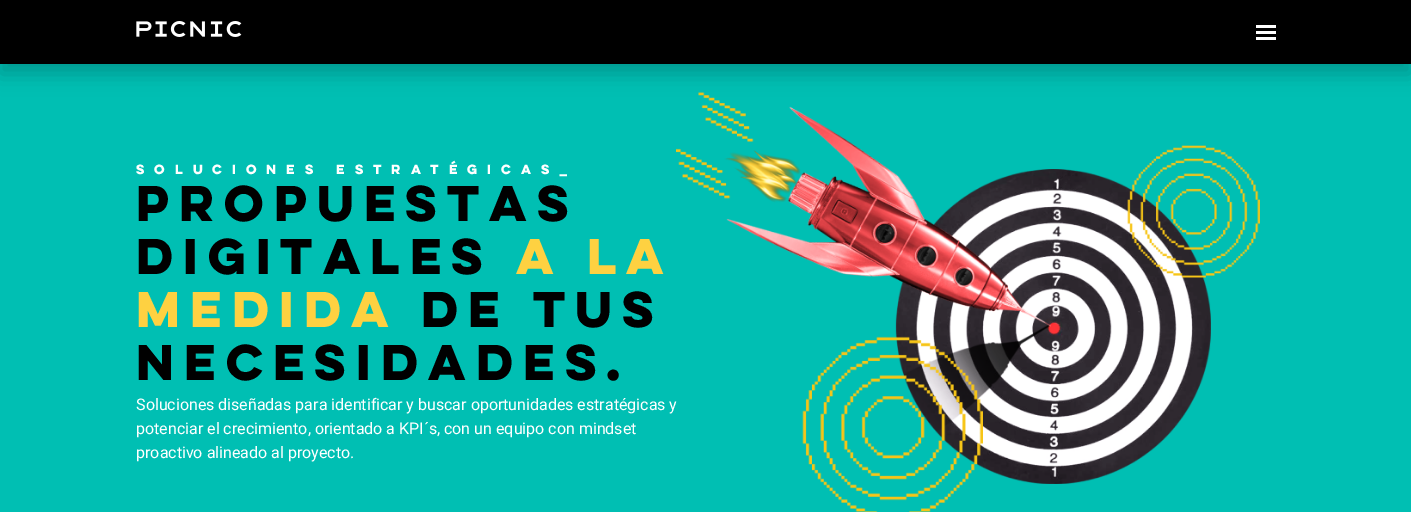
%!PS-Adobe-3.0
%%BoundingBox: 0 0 1411 512
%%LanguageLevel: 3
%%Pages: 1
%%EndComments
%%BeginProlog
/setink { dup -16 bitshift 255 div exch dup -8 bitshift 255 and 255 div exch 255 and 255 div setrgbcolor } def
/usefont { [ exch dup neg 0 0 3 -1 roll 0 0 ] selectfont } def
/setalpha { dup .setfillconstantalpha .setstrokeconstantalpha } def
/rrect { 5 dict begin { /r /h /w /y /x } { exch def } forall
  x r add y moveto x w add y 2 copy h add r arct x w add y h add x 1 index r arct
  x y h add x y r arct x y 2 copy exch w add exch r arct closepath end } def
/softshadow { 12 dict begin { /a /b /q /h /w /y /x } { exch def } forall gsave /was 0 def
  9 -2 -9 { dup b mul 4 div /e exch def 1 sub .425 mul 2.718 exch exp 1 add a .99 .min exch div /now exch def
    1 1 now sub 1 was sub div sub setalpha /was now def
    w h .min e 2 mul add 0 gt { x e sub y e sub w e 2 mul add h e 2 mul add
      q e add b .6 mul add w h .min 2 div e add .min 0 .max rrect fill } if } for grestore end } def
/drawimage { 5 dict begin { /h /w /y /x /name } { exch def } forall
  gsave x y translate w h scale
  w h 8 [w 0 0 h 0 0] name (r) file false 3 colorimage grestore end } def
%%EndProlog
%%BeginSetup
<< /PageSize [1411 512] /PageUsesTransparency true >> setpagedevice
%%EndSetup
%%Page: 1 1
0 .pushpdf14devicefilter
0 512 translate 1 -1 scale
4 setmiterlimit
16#00BFB3 setink
0 0 1411 512 rectfill
/Roboto-Regular 16 usefont
16#FFFFFF setink
136 410 moveto (Soluciones diseñadas para identificar y buscar oportunidades estratégicas y) show
(img2.raw) 676 92 584 420 drawimage
16#000000 setink
0 10 1411 64 0 10 0.2 softshadow
0 0 1411 64 rectfill
(img1.raw) 136 21 106 16 drawimage
[
    [1256 25 20 3 16#FFFFFF]
    [1256 31 20 3 16#FFFFFF]
    [1256 37 20 3 16#FFFFFF]
] { aload pop setink rectfill } forall
/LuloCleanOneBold-Bold 12 usefont
136 174 moveto 7.2 0 (SOLUCIONES ESTRATÉGICAS_) ashow
/LuloCleanOneBold-Bold 45 usefont
16#000000 setink
136 221 moveto (PROPUESTAS) show
136 274 moveto (DIGITALES) show
16#FED141 setink
516 274 moveto (A LA) show
136 327 moveto (MEDIDA) show
16#000000 setink
421 327 moveto (DE TUS) show
136 380 moveto (NECESIDADES.) show
/Roboto-Regular 16 usefont
16#FFFFFF setink
136 434 moveto (potenciar el crecimiento, orientado a KPI´s, con un equipo con mindset) show
136 458 moveto (proactivo alineado al proyecto.) show
.poppdf14devicefilter showpage
%%EOF
